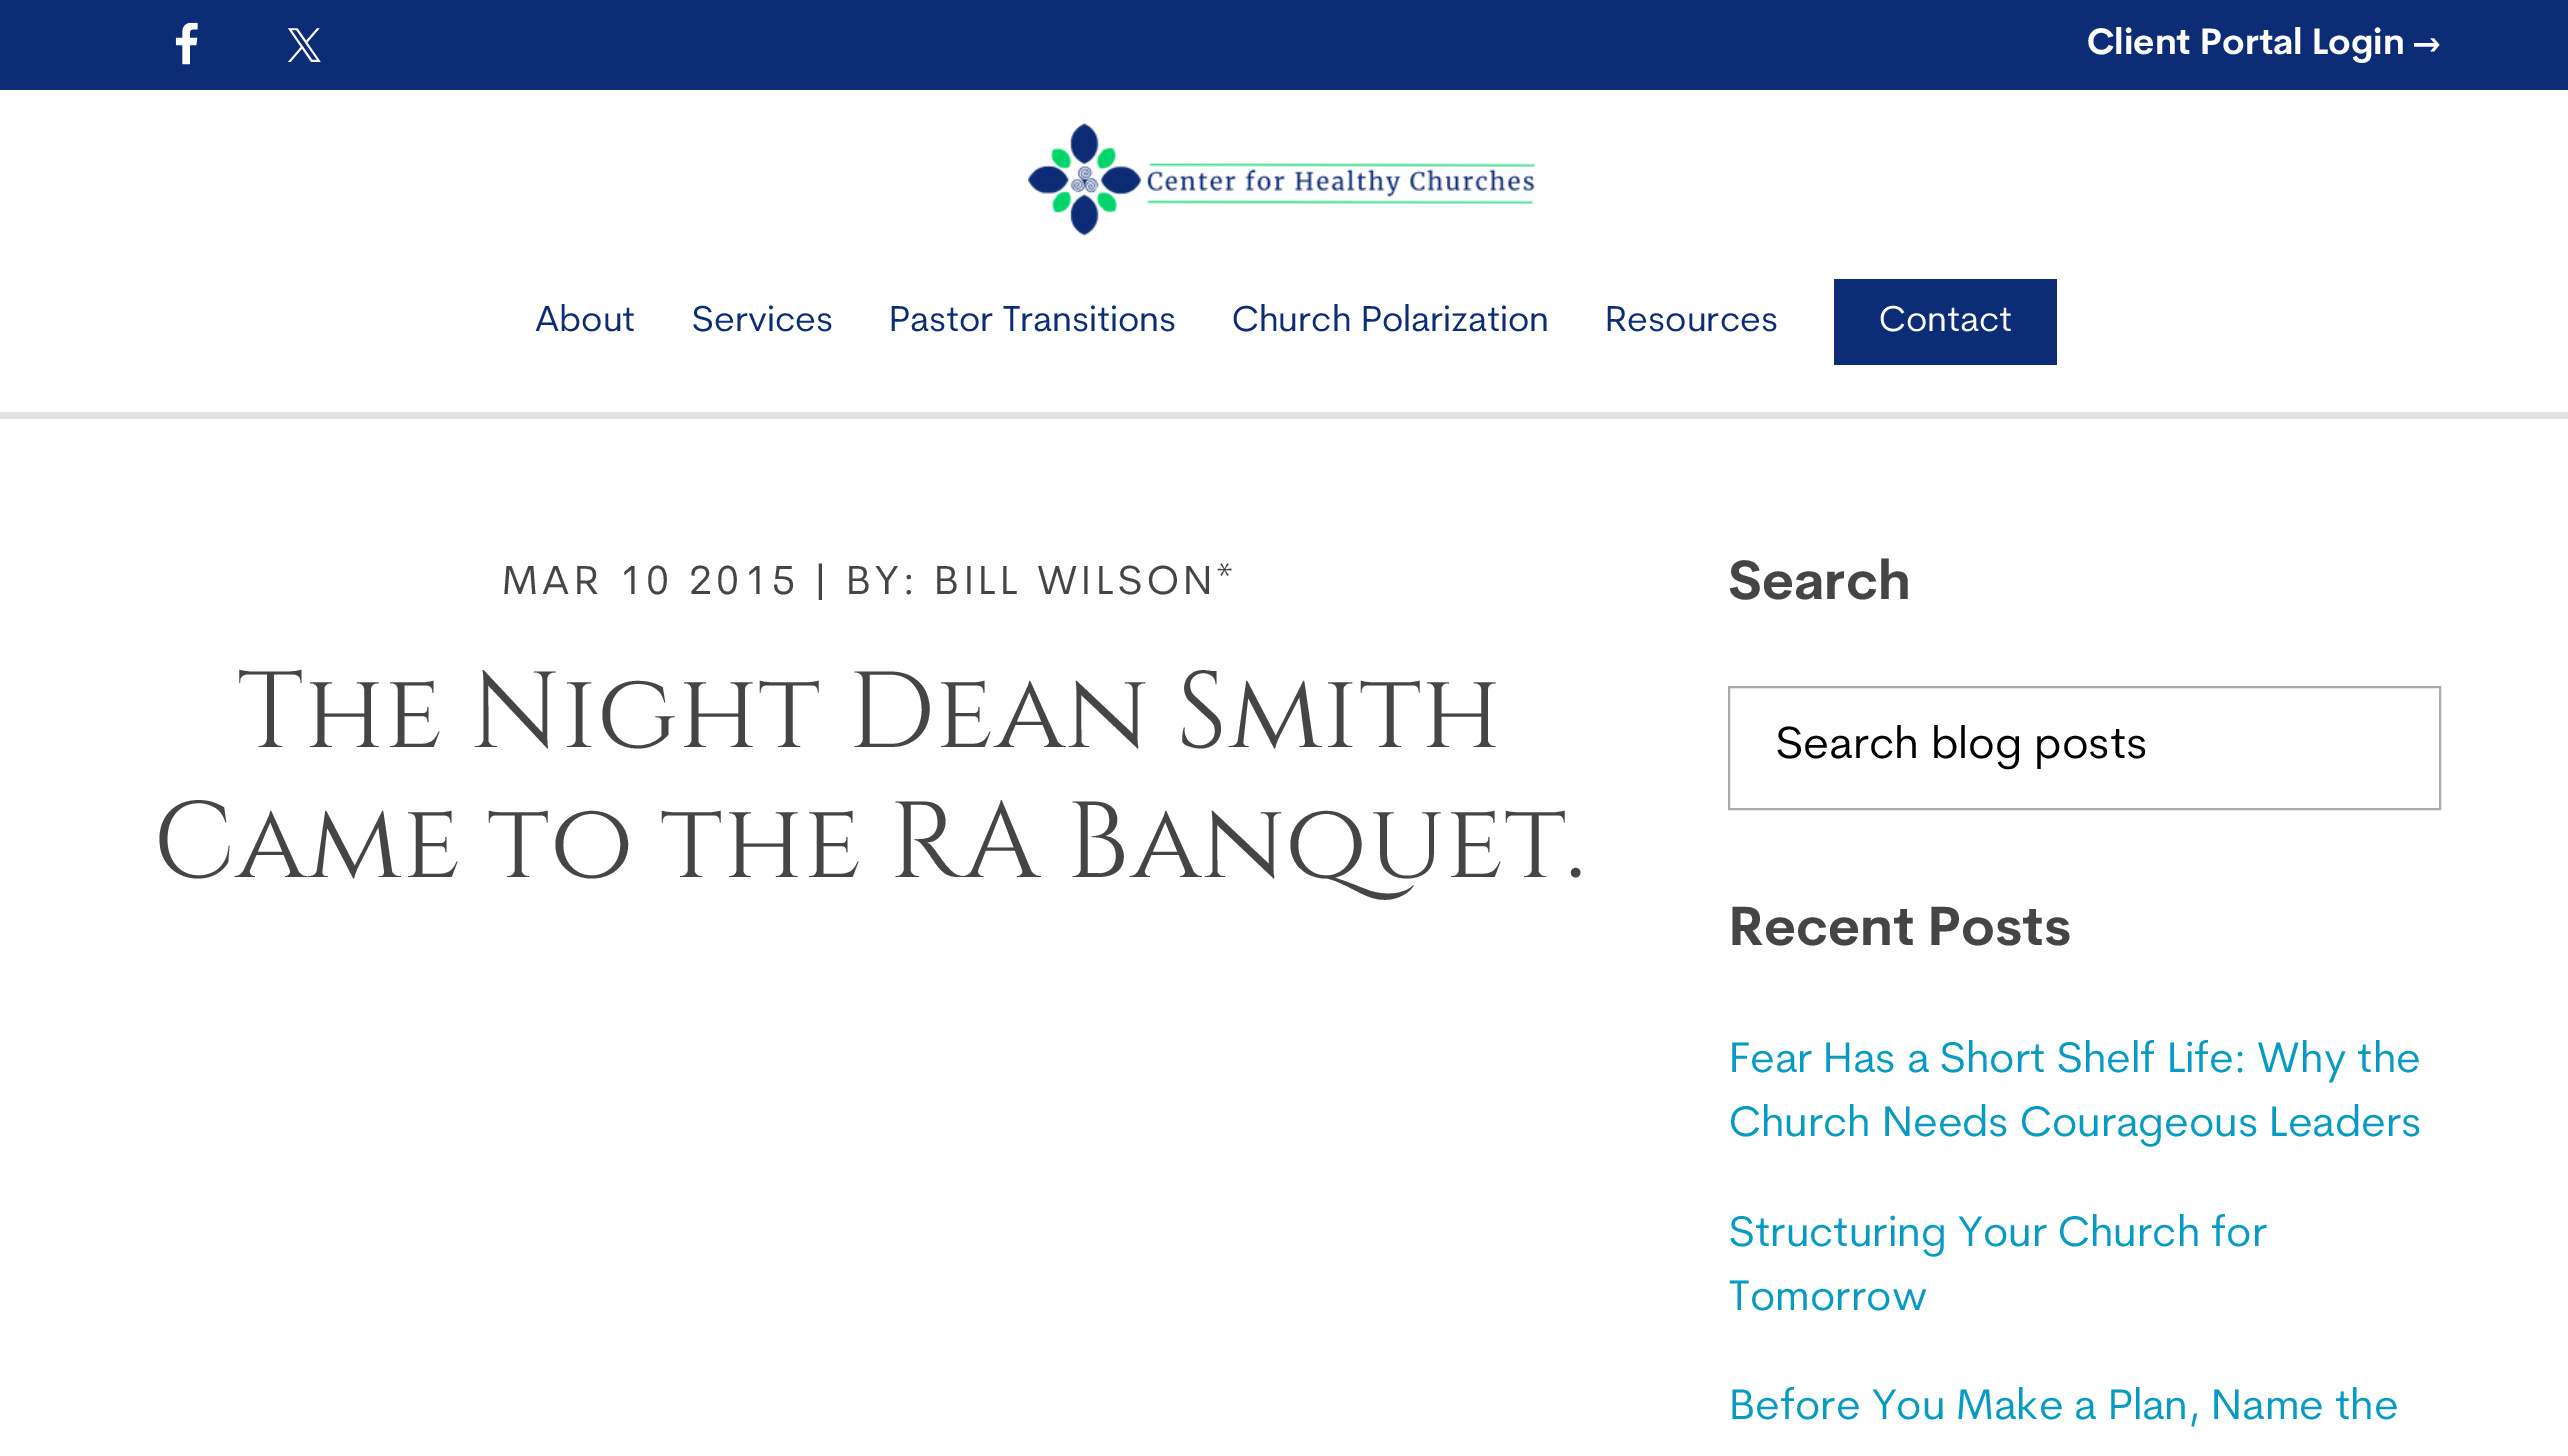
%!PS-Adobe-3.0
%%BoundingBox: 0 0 2568 1456
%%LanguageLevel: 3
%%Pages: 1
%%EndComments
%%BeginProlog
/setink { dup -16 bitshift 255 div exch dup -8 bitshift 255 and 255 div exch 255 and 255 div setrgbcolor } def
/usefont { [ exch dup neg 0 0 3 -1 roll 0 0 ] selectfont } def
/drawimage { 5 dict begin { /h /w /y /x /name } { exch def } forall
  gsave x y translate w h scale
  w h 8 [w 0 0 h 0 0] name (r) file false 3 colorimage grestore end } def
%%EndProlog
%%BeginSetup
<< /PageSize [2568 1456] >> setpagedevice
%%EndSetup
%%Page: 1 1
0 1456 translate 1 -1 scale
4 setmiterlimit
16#FFFFFF setink
0 0 2568 1456 rectfill
16#0C2C75 setink
0 0 2568 90 rectfill
(img1.raw) 175 22 23 43 drawimage
(img2.raw) 288 28 33 34 drawimage
/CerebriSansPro-Bold 36 usefont
16#FFFFFF setink
2087 54 moveto (Client Portal Login →) show
16#E2E2E2 setink
0 412 2568 7 rectfill
(img3.raw) 1028 123 508 113 drawimage
/CerebriSansPro-Regular 36 usefont
16#0C2C75 setink
[
    [(About) 535 331]
    [(Services) 692 331]
    [(Pastor Transitions) 889 331]
    [(Church Polarization) 1232 331]
    [(Resources) 1605 331]
] { aload pop moveto show } forall
1834 279 223 86 rectfill
16#FFFFFF setink
1879 331 moveto (Contact) show
/CerebriSansPro-Regular 40.5 usefont
16#454545 setink
502 594 moveto 4.5 0 (MAR 10 2015 | BY: BILL WILSON*) ashow
/Cinzel-Regular 108 usefont
237 747 moveto (The Night Dean Smith) show
153 877 moveto (Came to the RA Banquet.) show
/CerebriSansPro-Bold 54 usefont
1729 599 moveto (Search) show
16#AAAAAA setink
2 setlinewidth
1729 687 711 122 rectstroke
gsave
1775 725 619 45 rectclip
/CerebriSansPro-Regular 45 usefont
16#000000 setink
1776 758 moveto (Search blog posts) show
grestore
16#454545 setink
1729 945 moveto (Recent Posts) show
/CerebriSansPro-Regular 42.75 usefont
16#079BC4 setink
[
    [(Fear Has a Short Shelf Life: Why the) 1729 1072]
    [(Church Needs Courageous Leaders) 1729 1136]
    [(Structuring Your Church for) 1729 1246]
    [(Tomorrow) 1729 1310]
    [(Before You Make a Plan, Name the) 1729 1419]
] { aload pop moveto show } forall
showpage
%%EOF
